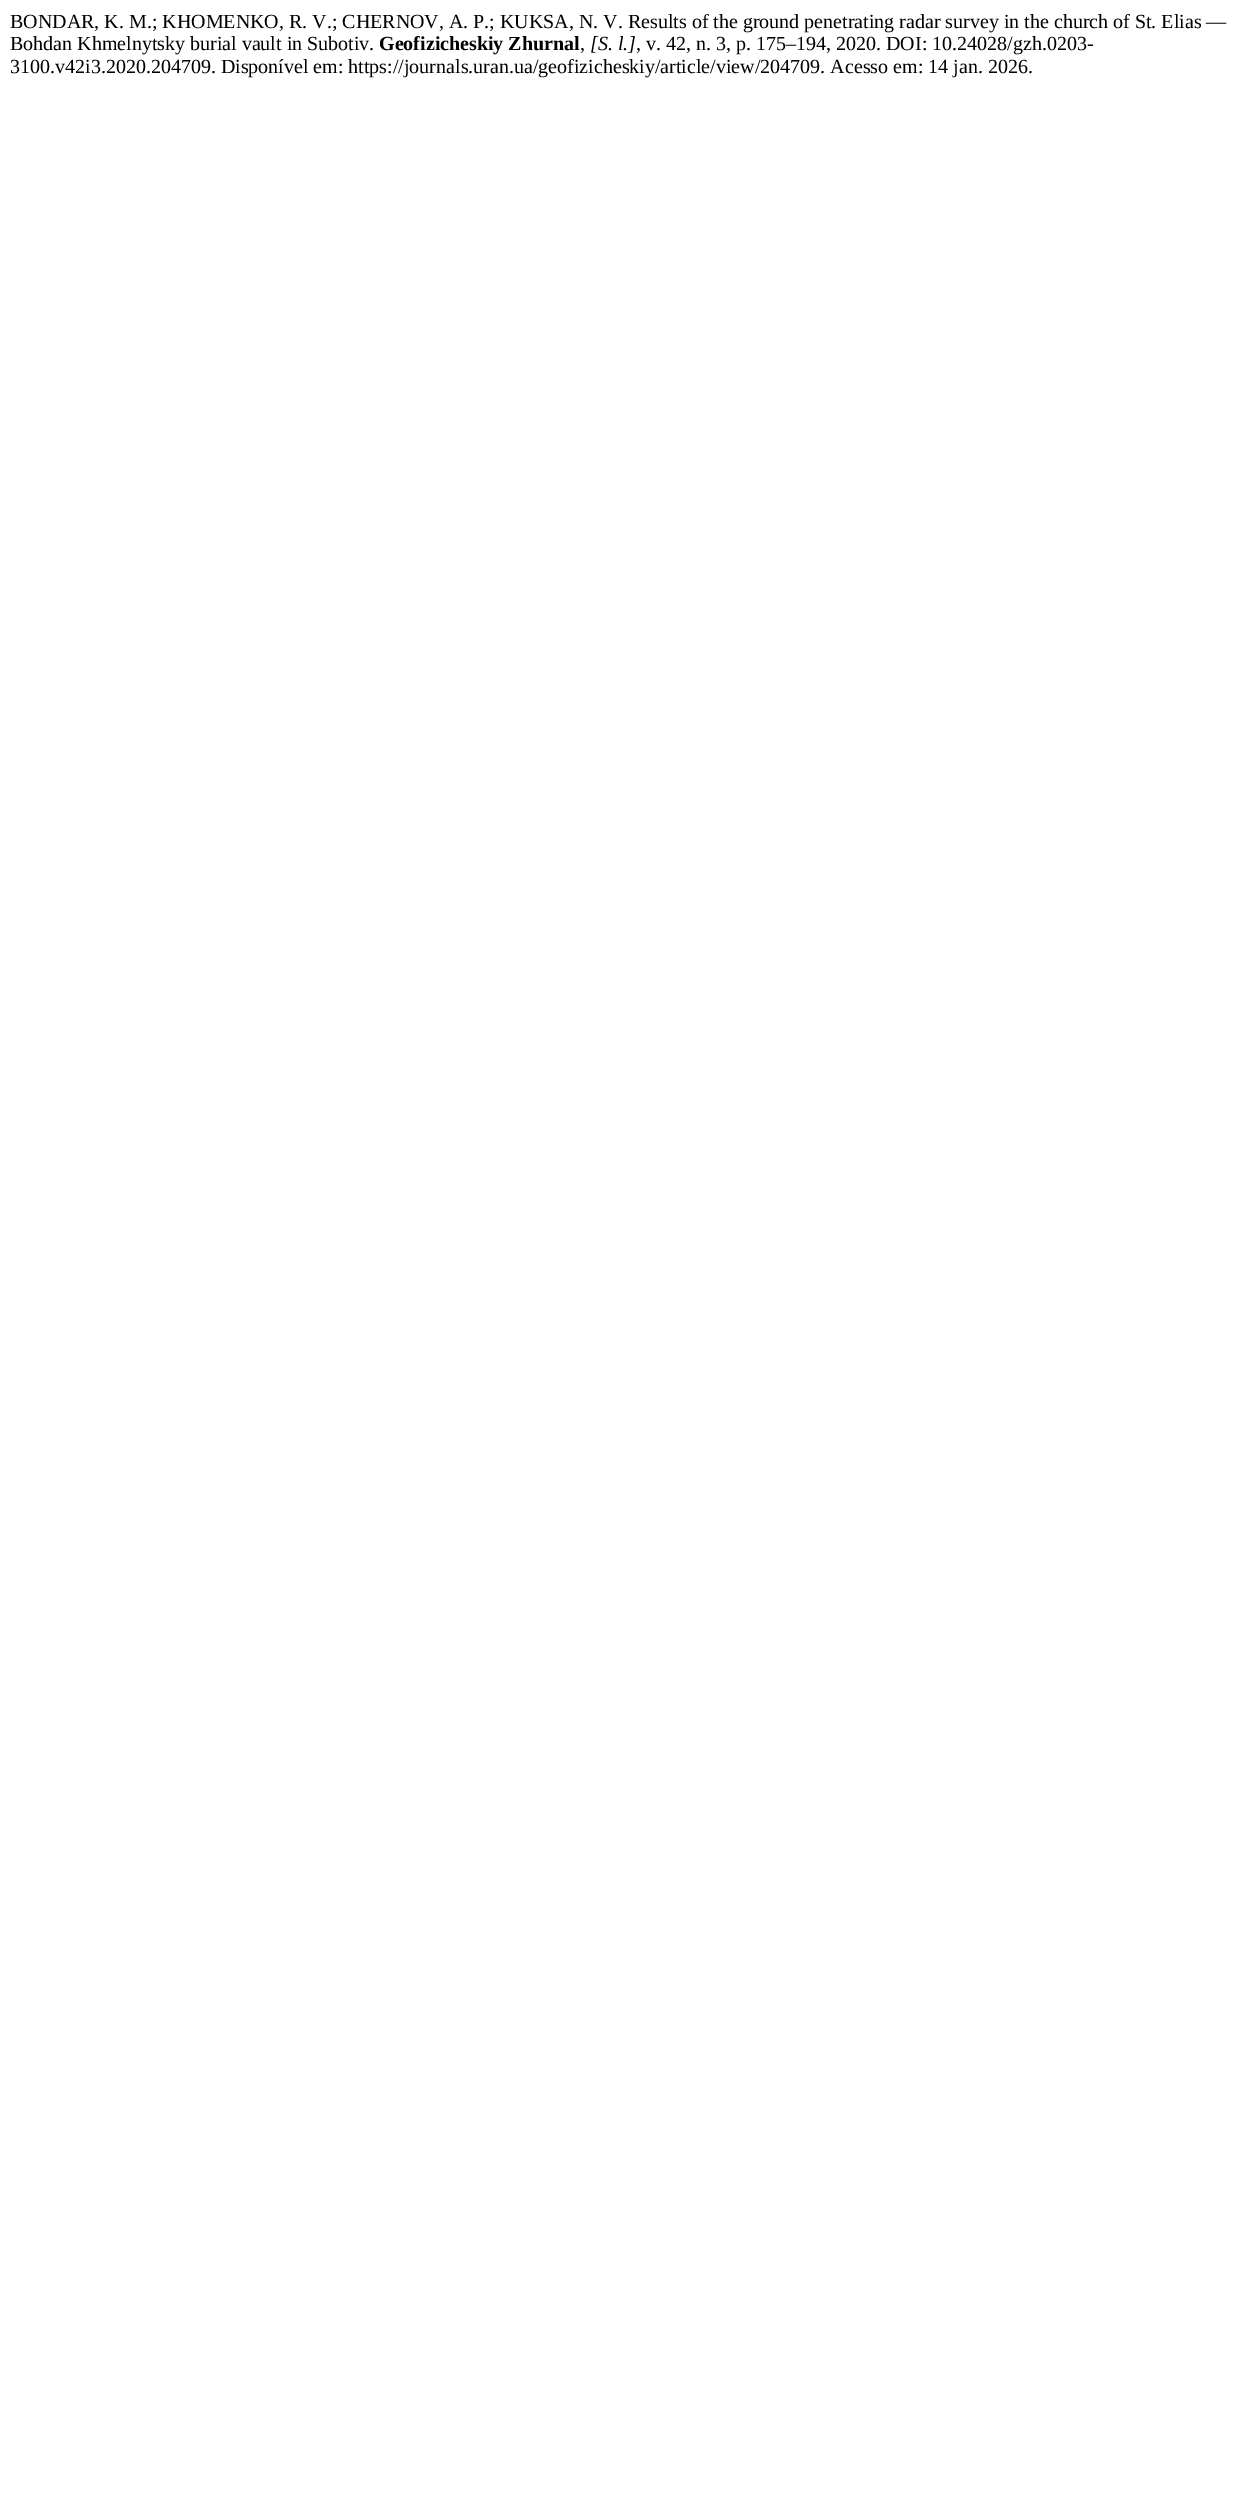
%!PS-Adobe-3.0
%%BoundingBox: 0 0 1257 2496
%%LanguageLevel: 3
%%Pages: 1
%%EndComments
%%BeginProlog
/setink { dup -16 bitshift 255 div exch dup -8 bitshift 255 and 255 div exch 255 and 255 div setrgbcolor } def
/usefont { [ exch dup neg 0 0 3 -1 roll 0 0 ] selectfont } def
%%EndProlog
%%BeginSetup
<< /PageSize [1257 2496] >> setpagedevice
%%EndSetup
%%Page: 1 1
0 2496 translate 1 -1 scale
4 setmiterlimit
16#FFFFFF setink
0 0 1257 2496 rectfill
/LiberationSerif-Regular 20 usefont
16#000000 setink
10 28 moveto (BONDAR, K. M.; KHOMENKO, R. V.; CHERNOV, A. P.; KUKSA, N. V. Results of the ground penetrating radar survey in the church of St. Elias —) show
10 50 moveto (Bohdan Khmelnytsky burial vault in Subotiv.) show
/LiberationSerif-Bold 20 usefont
379 50 moveto (Geofizicheskiy Zhurnal) show
/LiberationSerif-Regular 20 usefont
580 50 moveto (,) show
/LiberationSerif-Italic 20 usefont
590 50 moveto ([S. l.]) show
/LiberationSerif-Regular 20 usefont
636 50 moveto (, v. 42, n. 3, p. 175–194, 2020. DOI: 10.24028/gzh.0203-) show
10 73 moveto (3100.v42i3.2020.204709. Disponível em: https://journals.uran.ua/geofizicheskiy/article/view/204709. Acesso em: 14 jan. 2026.) show
showpage
%%EOF
